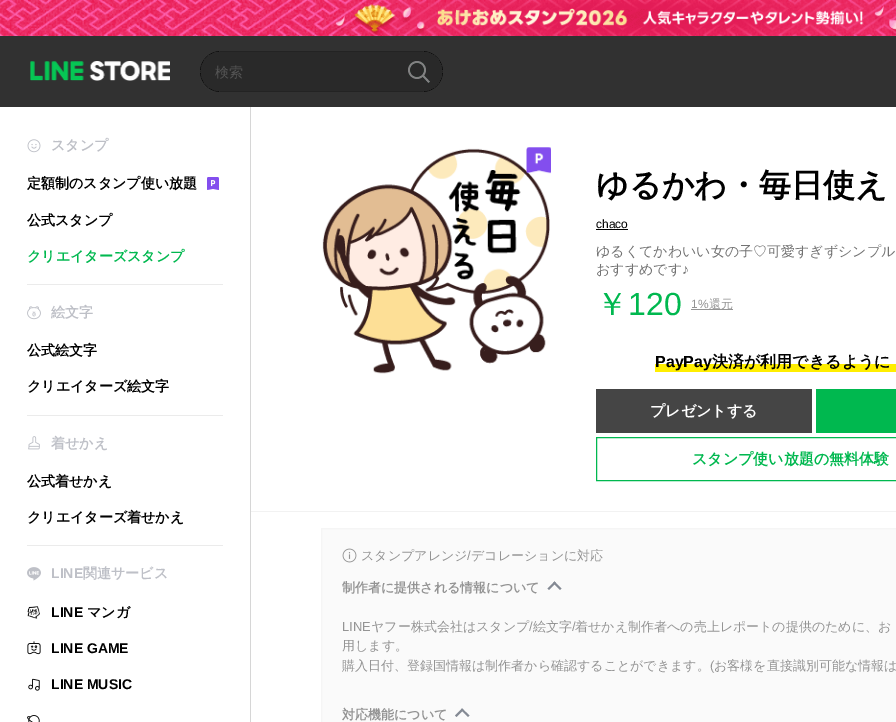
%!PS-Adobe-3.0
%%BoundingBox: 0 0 896 722
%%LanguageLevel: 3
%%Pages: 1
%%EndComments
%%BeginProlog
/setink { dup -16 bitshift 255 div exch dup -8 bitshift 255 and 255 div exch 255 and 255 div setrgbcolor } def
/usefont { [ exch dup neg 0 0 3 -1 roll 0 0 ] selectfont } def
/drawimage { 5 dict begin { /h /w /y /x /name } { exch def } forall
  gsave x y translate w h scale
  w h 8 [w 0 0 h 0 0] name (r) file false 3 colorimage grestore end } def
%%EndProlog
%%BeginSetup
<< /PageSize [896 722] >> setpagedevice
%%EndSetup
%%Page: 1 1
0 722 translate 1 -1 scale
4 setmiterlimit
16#FFFFFF setink
0 0 896 722 rectfill
(img1.raw) 0 0 896 36 drawimage
16#313131 setink
0 36 896 71 rectfill
(img2.raw) 30 61 140 20 drawimage
(img3.raw) 200 51 243 41 drawimage
/WenQuanYiZenHei-Medium 14 usefont
16#545454 setink
215 77 moveto (検索) show
(img4.raw) 408 61 22 22 drawimage
(img5.raw) 27 139 14 14 drawimage
/WenQuanYiZenHei-Bold 14 usefont
16#BEC0C7 setink
51 150 moveto (スタンプ) show
16#000000 setink
27 188 moveto (定額制のスタンプ使い放題) show
(img6.raw) 207 177 12 13 drawimage
27 225 moveto (公式スタンプ) show
16#00B84F setink
27 261 moveto (クリエイターズスタンプ) show
16#EBEBEB setink
27 284 196 1 rectfill
(img7.raw) 27 306 14 14 drawimage
16#BEC0C7 setink
51 317 moveto (絵文字) show
16#000000 setink
27 355 moveto (公式絵文字) show
27 391 moveto (クリエイターズ絵文字) show
16#EBEBEB setink
27 415 196 1 rectfill
(img8.raw) 28 436 12 14 drawimage
16#BEC0C7 setink
51 448 moveto (着せかえ) show
16#000000 setink
27 486 moveto (公式着せかえ) show
27 522 moveto (クリエイターズ着せかえ) show
16#EBEBEB setink
27 545 196 1 rectfill
(img9.raw) 27 567 14 14 drawimage
/LiberationSans-Bold 14 usefont
16#BEC0C7 setink
51 578 moveto (LINE) show
/WenQuanYiZenHei-Bold 14 usefont
83 578 moveto (関連サービス) show
(img10.raw) 27 606 13 13 drawimage
/LiberationSans-Bold 14 usefont
16#000000 setink
51 617 moveto (LINE) show
/WenQuanYiZenHei-Bold 14 usefont
87 617 moveto (マンガ) show
(img11.raw) 27 641 14 14 drawimage
/LiberationSans-Bold 14 usefont
51 653 moveto (LINE GAME) show
(img12.raw) 28 678 12 13 drawimage
51 689 moveto (LINE MUSIC) show
(img13.raw) 27 715 13 7 drawimage
16#D6D6D6 setink
250 107 1 615 rectfill
(img15.raw) 322 148 228 226 drawimage
(img14.raw) 526 147 25 27 drawimage
/WenQuanYiZenHei-Bold 32 usefont
16#000000 setink
596 196 moveto (ゆるかわ・毎日使え) show
/LiberationSans-Regular 12 usefont
596 228 moveto (chaco) show
596 229 32 1 rectfill
/WenQuanYiZenHei-Medium 14 usefont
16#737373 setink
596 256 moveto (ゆるくてかわいい女の子♡可愛すぎずシンプル) show
596 274 moveto (おすすめです) show
/LiberationSans-Regular 14 usefont
682 274 moveto (♪) show
/WenQuanYiZenHei-Medium 32 usefont
16#00B84F setink
596 315 moveto (￥) show
/LiberationSans-Regular 32 usefont
628 315 moveto (120) show
/LiberationSans-Regular 12 usefont
16#949494 setink
691 308 moveto (1%) show
691 309 42 1 rectfill
/WenQuanYiZenHei-Medium 12 usefont
709 308 moveto (還元) show
16#FFEE00 setink
655 364 241 8 rectfill
/LiberationSans-Bold 16 usefont
16#000000 setink
655 367 moveto (PayPay) show
/WenQuanYiZenHei-Bold 16 usefont
712 367 moveto (決済が利用できるように) show
16#454545 setink
596 389 216 44 rectfill
/WenQuanYiZenHei-Bold 15 usefont
16#FFFFFF setink
650 416 moveto (プレゼントする) show
16#00B84F setink
816 389 80 44 rectfill
596.5 437.5 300 43 rectstroke
692 464 moveto (スタンプ使い放題の無料体験) show
16#F2F2F2 setink
251 511 645 1 rectfill
16#FAFAFA setink
321.5 528.5 moveto 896.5 528.5 lineto 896.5 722.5 lineto 321.5 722.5 lineto closepath gsave fill grestore
16#F5F5F5 setink
stroke
(img16.raw) 342 548 15 15 drawimage
/WenQuanYiZenHei-Medium 13 usefont
16#949494 setink
361 560 moveto (スタンプアレンジ) show
/LiberationSans-Regular 13 usefont
467 560 moveto (/) show
/WenQuanYiZenHei-Medium 13 usefont
471 560 moveto (デコレーションに対応) show
/WenQuanYiZenHei-Bold 13 usefont
342 592 moveto (制作者に提供される情報について) show
16#848A94 setink
547.5 588.5 moveto 554.5 581.5 lineto 556 583 lineto 549 590 lineto closepath fill
553 583 moveto 554.5 581.5 lineto 561.5 588.5 lineto 560 590 lineto closepath fill
/LiberationSans-Regular 13 usefont
16#949494 setink
342 631 moveto (LINE) show
/WenQuanYiZenHei-Medium 13 usefont
371 631 moveto (ヤフー株式会社はスタンプ) show
/LiberationSans-Regular 13 usefont
529 631 moveto (/) show
/WenQuanYiZenHei-Medium 13 usefont
533 631 moveto (絵文字) show
/LiberationSans-Regular 13 usefont
572 631 moveto (/) show
/WenQuanYiZenHei-Medium 13 usefont
[
    [(着せかえ制作者への売上レポートの提供のために、お) 575 631]
    [(用します。) 342 650]
    [(購入日付、登録国情報は制作者から確認することができます。) 342 670]
] { aload pop moveto show } forall
/LiberationSans-Regular 13 usefont
710 670 moveto (\() show
/WenQuanYiZenHei-Medium 13 usefont
714 670 moveto (お客様を直接識別可能な情報は) show
/WenQuanYiZenHei-Bold 13 usefont
342 719 moveto (対応機能について) show
16#848A94 setink
455 715.5 moveto 462 708.5 lineto 463.5 710 lineto 456.5 717 lineto closepath fill
461 710 moveto 462 708.5 lineto 469.5 715.5 lineto 468 717 lineto closepath fill
showpage
%%EOF
